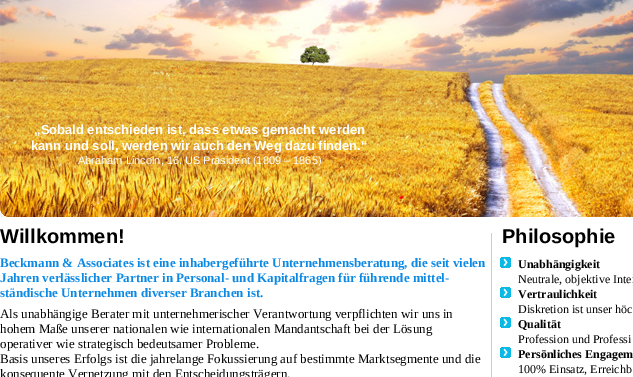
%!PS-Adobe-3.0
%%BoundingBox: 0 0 633 377
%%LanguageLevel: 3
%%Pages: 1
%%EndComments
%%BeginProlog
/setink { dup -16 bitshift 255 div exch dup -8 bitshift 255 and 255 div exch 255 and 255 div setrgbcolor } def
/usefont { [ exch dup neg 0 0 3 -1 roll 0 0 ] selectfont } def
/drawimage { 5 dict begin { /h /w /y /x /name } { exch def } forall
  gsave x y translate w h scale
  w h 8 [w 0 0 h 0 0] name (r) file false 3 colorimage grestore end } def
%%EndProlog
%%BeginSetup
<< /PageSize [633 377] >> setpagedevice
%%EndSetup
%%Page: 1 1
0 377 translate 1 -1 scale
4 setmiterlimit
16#FFFFFF setink
0 0 633 377 rectfill
(img1.raw) 0 0 633 217 drawimage
/LiberationSans-Bold 13 usefont
34 134 moveto („Sobald entschieden ist, dass etwas gemacht werden) show
31 150 moveto (kann und soll, werden wir auch den Weg dazu finden.“) show
/LiberationSans-Regular 11 usefont
78 164 moveto (Abraham Lincoln, 16. US Präsident \(1809 – 1865\)) show
16#CCCCCC setink
491 233 1 144 rectfill
/LiberationSans-Bold 20 usefont
16#000000 setink
0 243 moveto (Willkommen!) show
/LiberationSerif-Bold 13 usefont
16#0A89E5 setink
[
    [(Beckmann & Associates ist eine inhabergeführte Unternehmensberatung, die seit vielen) 0 267]
    [(Jahren verlässlicher Partner in Personal- und Kapitalfragen für führende mittel-) 0 282]
    [(ständische Unternehmen diverser Branchen ist.) 0 297]
] { aload pop moveto show } forall
/LiberationSerif-Regular 13 usefont
16#000000 setink
[
    [(Als unabhängige Berater mit unternehmerischer Verantwortung verpflichten wir uns in) 0 318]
    [(hohem Maße unserer nationalen wie internationalen Mandantschaft bei der Lösung) 0 333]
    [(operativer wie strategisch bedeutsamer Probleme.) 0 348]
    [(Basis unseres Erfolgs ist die jahrelange Fokussierung auf bestimmte Marktsegmente und die) 0 363]
    [(konsequente Vernetzung mit den Entscheidungsträgern.) 0 378]
] { aload pop moveto show } forall
/LiberationSans-Bold 20 usefont
502 243 moveto (Philosophie) show
(img2.raw) 500 257 11 11 drawimage
/LiberationSerif-Bold 12 usefont
518 268 moveto (Unabhängigkeit) show
/LiberationSerif-Regular 12 usefont
518 283 moveto (Neutrale, objektive Inter) show
(img2.raw) 500 287 11 11 drawimage
/LiberationSerif-Bold 12 usefont
518 298 moveto (Vertraulichkeit) show
/LiberationSerif-Regular 12 usefont
518 313 moveto (Diskretion ist unser höc) show
(img2.raw) 500 317 11 11 drawimage
/LiberationSerif-Bold 12 usefont
518 328 moveto (Qualität) show
/LiberationSerif-Regular 12 usefont
518 343 moveto (Profession und Professi) show
(img2.raw) 500 347 11 11 drawimage
/LiberationSerif-Bold 12 usefont
518 358 moveto (Persönliches Engagem) show
/LiberationSerif-Regular 12 usefont
518 373 moveto (100% Einsatz, Erreichb) show
showpage
%%EOF
